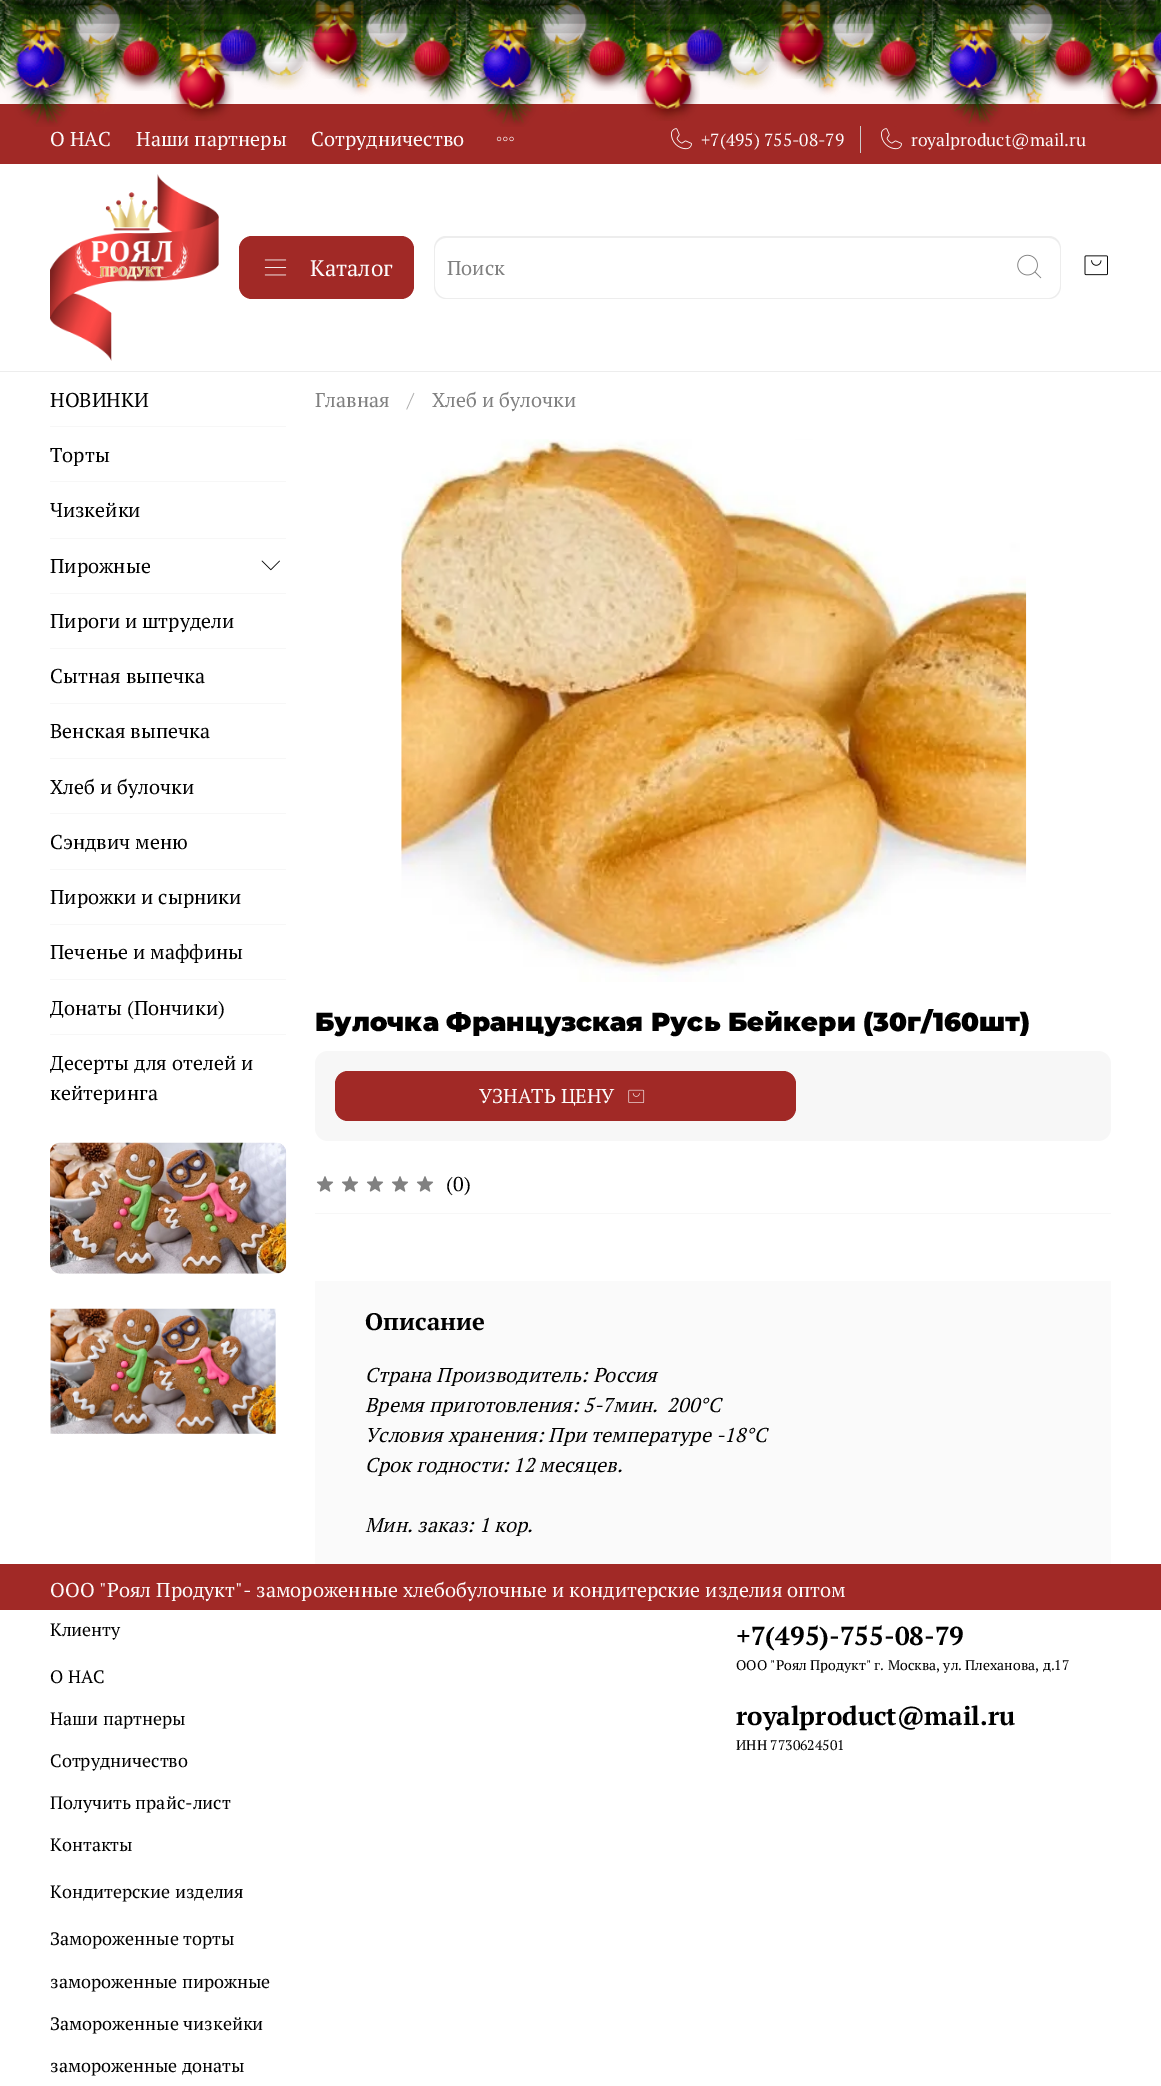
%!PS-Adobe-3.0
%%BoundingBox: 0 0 1161 2086
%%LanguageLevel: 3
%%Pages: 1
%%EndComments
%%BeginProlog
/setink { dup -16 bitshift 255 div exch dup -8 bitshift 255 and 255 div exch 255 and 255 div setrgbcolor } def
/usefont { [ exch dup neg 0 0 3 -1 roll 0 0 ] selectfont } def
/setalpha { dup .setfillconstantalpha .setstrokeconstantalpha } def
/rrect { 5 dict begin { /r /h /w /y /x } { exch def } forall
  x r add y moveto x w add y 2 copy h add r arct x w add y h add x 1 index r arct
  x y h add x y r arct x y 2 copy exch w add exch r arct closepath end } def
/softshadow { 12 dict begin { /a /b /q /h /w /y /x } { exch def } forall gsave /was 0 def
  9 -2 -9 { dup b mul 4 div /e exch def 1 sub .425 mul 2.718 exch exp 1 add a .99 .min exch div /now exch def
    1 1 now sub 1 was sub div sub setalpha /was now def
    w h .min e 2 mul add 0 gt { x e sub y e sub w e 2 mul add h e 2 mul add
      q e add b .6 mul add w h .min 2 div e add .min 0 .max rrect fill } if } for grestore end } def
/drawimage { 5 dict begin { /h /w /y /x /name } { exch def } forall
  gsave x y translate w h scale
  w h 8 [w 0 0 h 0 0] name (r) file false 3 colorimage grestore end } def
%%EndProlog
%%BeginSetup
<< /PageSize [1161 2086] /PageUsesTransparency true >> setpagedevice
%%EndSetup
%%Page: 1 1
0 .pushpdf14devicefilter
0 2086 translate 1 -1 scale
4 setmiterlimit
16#FFFFFF setink
0 0 1161 2086 rectfill
[
    [0 0 1161 104 16#FFF9F9]
    [0 104 1161 60 16#A12926]
    [860 126 1 27 16#CCCCCC]
] { aload pop setink rectfill } forall
(img1.raw) 0 0 1161 127 drawimage
(img3.raw) 8 0 65 103 drawimage
(img2.raw) 0 0 32 89 drawimage
(img5.raw) 67 0 62 58 drawimage
(img4.raw) 31 0 76 34 drawimage
(img6.raw) 171 0 63 121 drawimage
(img7.raw) 212 0 51 72 drawimage
(img13.raw) 255 7 56 83 drawimage
(img8.raw) 221 0 36 39 drawimage
(img10.raw) 304 0 61 79 drawimage
(img9.raw) 256 0 63 63 drawimage
(img11.raw) 359 0 57 61 drawimage
(img12.raw) 115 11 51 80 drawimage
(img16.raw) 406 12 52 79 drawimage
(img14.raw) 361 0 98 35 drawimage
(img15.raw) 458 0 9 86 drawimage
(img18.raw) 474 0 65 103 drawimage
(img17.raw) 466 0 32 89 drawimage
(img20.raw) 534 0 61 58 drawimage
(img19.raw) 497 0 77 33 drawimage
(img21.raw) 637 0 63 121 drawimage
(img22.raw) 678 0 51 72 drawimage
(img28.raw) 721 7 56 83 drawimage
(img23.raw) 687 0 36 39 drawimage
(img25.raw) 771 0 60 79 drawimage
(img24.raw) 722 0 63 63 drawimage
(img26.raw) 825 0 58 61 drawimage
(img27.raw) 581 11 51 80 drawimage
(img31.raw) 872 12 52 79 drawimage
(img29.raw) 827 0 98 35 drawimage
(img30.raw) 925 0 8 86 drawimage
(img33.raw) 941 0 64 103 drawimage
(img32.raw) 932 0 32 89 drawimage
(img35.raw) 1000 0 61 58 drawimage
(img34.raw) 963 0 77 33 drawimage
(img36.raw) 1103 0 58 121 drawimage
(img37.raw) 1047 11 51 80 drawimage
(img38.raw) 1154 0 7 25 drawimage
(img39.raw) 1144 29 17 43 drawimage
16#000000 setink
0 -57 1161 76 0 19 0.75 softshadow
/PTSerif-Regular 20 usefont
16#FCFAFA setink
[
    [(О НАС) 50 146]
    [(Наши партнеры) 136 146]
    [(Сотрудничество) 311 146]
] { aload pop moveto show } forall
(img40.raw) 496 136 18 6 drawimage
(img41.raw) 671 128 21 22 drawimage
/PTSerif-Regular 17.5 usefont
701 146 moveto (+7\(495\) 755-08-79) show
(img41.raw) 881 128 21 22 drawimage
911 146 moveto (royalproduct@mail.ru) show
16#EDEDED setink
0 371 1161 1 rectfill
(img42.raw) 50 174 169 187 drawimage
16#A12926 setink
239 236 175 63 13 rrect fill
(img43.raw) 264 259 23 17 drawimage
/PTSerif-Regular 22.5 usefont
16#FCFAFA setink
310 276 moveto (Каталог) show
16#EDEDED setink
446 236 moveto 999 236 lineto 999 299 lineto 446 299 lineto 439 299 434 293 434 286 curveto 434 249 lineto 434 242 439 236 446 236 curveto closepath 446 238 moveto 999 238 lineto 999 298 lineto 446 298 lineto 440 298 435 292 435 286 curveto 435 249 lineto 435 243 440 238 446 238 curveto closepath eofill
/PTSerif-Regular 20 usefont
16#808080 setink
447 275 moveto (Поиск) show
16#EDEDED setink
999 236 moveto 1049 236 lineto 1056 236 1061 242 1061 249 curveto 1061 286 lineto 1061 293 1056 299 1049 299 curveto 999 299 lineto closepath 999 238 moveto 1049 238 lineto 1055 238 1060 243 1060 249 curveto 1060 286 lineto 1060 292 1055 298 1049 298 curveto 999 298 lineto closepath eofill
(img44.raw) 1017 254 25 25 drawimage
(img45.raw) 1084 255 24 21 drawimage
16#F7F7F7 setink
50 426 236 1 rectfill
16#000000 setink
50 407 moveto (НОВИНКИ) show
16#F7F7F7 setink
50 481 236 1 rectfill
16#000000 setink
50 462 moveto (Торты) show
16#F7F7F7 setink
50 538 236 1 rectfill
16#000000 setink
50 517 moveto (Чизкейки) show
16#F7F7F7 setink
50 593 236 1 rectfill
16#000000 setink
50 573 moveto (Пирожные) show
(img46.raw) 261 560 19 11 drawimage
16#F7F7F7 setink
50 648 236 1 rectfill
16#000000 setink
50 628 moveto (Пироги и штрудели) show
16#F7F7F7 setink
50 703 236 1 rectfill
16#000000 setink
50 683 moveto (Сытная выпечка) show
16#F7F7F7 setink
50 758 236 1 rectfill
16#000000 setink
50 738 moveto (Венская выпечка) show
16#F7F7F7 setink
50 813 236 1 rectfill
16#000000 setink
50 794 moveto (Хлеб и булочки) show
16#F7F7F7 setink
50 869 236 1 rectfill
16#000000 setink
50 849 moveto (Сэндвич меню) show
16#F7F7F7 setink
50 924 236 1 rectfill
16#000000 setink
50 904 moveto (Пирожки и сырники) show
16#F7F7F7 setink
50 979 236 1 rectfill
16#000000 setink
50 959 moveto (Печенье и маффины) show
16#F7F7F7 setink
50 1034 236 1 rectfill
16#000000 setink
[
    [(Донаты \(Пончики\)) 50 1015]
    [(Десерты для отелей и) 50 1070]
    [(кейтеринга) 50 1100]
] { aload pop moveto show } forall
(img47.raw) 50 1142 237 132 drawimage
(img48.raw) 50 1308 226 126 drawimage
16#808080 setink
315 407 moveto (Главная) show
16#A6A6A6 setink
407 407 moveto (/) show
16#808080 setink
432 407 moveto (Хлеб и булочки) show
(img49.raw) 401 439 626 543 drawimage
/Montserrat-Black 26 usefont
16#000000 setink
315 1031 moveto (Булочка Французская Русь Бейкери \(30г/160шт\)) show
16#F7F7F7 setink
315 1051 796 90 13 rrect fill
16#A12926 setink
335 1071 461 50 13 rrect fill
/PTSerif-Regular 20 usefont
16#FCFAFA setink
479 1103 moveto (УЗНАТЬ ЦЕНУ) show
(img50.raw) 628 1089 17 14 drawimage
16#F7F7F7 setink
315 1213 796 1 rectfill
(img51.raw) 316 1176 18 16 drawimage
(img51.raw) 341 1176 18 16 drawimage
(img51.raw) 366 1176 18 16 drawimage
(img51.raw) 391 1176 18 16 drawimage
(img51.raw) 416 1176 18 16 drawimage
16#000000 setink
446 1191 moveto (\(0\)) show
16#FAFAFA setink
315 1281 796 283 rectfill
/PTSerif-Bold 24 usefont
16#000000 setink
365 1330 moveto (Описание) show
/PTSerif-Italic 20 usefont
[
    [(Страна Производитель: Россия) 365 1382]
    [(Время приготовления: 5-7мин.  200°С) 365 1412]
    [(Условия хранения: При температуре -18°С) 365 1442]
    [(Срок годности: 12 месяцев.) 365 1472]
    [(Мин. заказ: 1 кор.) 365 1532]
] { aload pop moveto show } forall
16#A12926 setink
0 1564 1161 46 rectfill
/PTSerif-Regular 20 usefont
16#FCFAFA setink
50 1597 moveto (ООО "Роял Продукт"- замороженные хлебобулочные и кондитерские изделия оптом) show
/PTSerif-Regular 18 usefont
16#000000 setink
[
    [(Клиенту) 50 1636]
    [(О НАС) 50 1683]
    [(Наши партнеры) 50 1725]
    [(Сотрудничество) 50 1767]
    [(Получить прайс-лист) 50 1809]
    [(Контакты) 50 1851]
    [(Кондитерские изделия) 50 1898]
    [(Замороженные торты) 50 1945]
    [(замороженные пирожные) 50 1988]
    [(Замороженные чизкейки) 50 2030]
    [(замороженные донаты) 50 2072]
] { aload pop moveto show } forall
/PTSerif-Bold 26 usefont
736 1645 moveto (+7\(495\)-755-08-79) show
/PTSerif-Regular 14 usefont
736 1670 moveto (ООО "Роял Продукт" г. Москва, ул. Плеханова, д.17) show
/PTSerif-Bold 26 usefont
736 1725 moveto (royalproduct@mail.ru) show
/PTSerif-Regular 14 usefont
736 1750 moveto (ИНН 7730624501) show
.poppdf14devicefilter showpage
%%EOF
